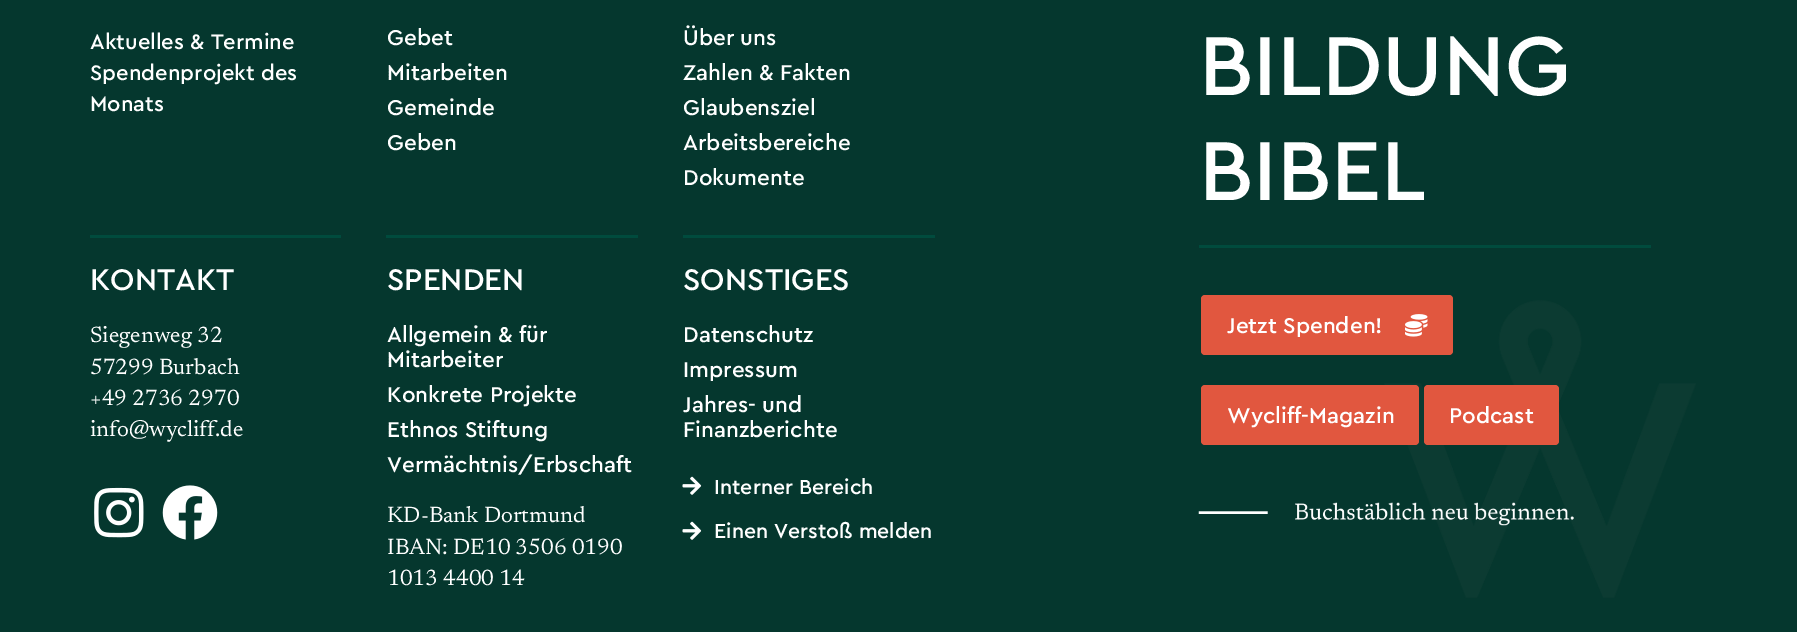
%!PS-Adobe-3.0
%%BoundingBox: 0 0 1797 632
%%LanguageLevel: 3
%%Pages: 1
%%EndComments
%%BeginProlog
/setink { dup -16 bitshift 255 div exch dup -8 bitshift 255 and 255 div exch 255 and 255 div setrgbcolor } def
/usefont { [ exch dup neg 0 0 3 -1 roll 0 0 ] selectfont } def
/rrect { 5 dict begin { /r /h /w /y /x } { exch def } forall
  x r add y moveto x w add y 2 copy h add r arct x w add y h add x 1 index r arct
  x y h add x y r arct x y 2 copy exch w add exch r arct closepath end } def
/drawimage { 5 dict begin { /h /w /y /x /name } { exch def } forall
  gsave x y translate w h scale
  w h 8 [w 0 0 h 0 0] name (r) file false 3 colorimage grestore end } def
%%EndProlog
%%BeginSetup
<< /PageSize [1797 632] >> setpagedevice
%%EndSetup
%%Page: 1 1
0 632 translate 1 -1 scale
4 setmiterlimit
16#05372E setink
0 0 1797 632 rectfill
/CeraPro-Medium 22 usefont
16#FFFFFF setink
[
    [(Aktuelles & Termine) 90 49]
    [(Spendenprojekt des) 90 80]
    [(Monats) 90 111]
] { aload pop moveto show } forall
/CeraPro-Medium 22.5 usefont
[
    [(Gebet) 387 45]
    [(Mitarbeiten) 387 80]
    [(Gemeinde) 387 115]
    [(Geben) 387 150]
    [(Über uns) 683 45]
    [(Zahlen & Fakten) 683 80]
    [(Glaubensziel) 683 115]
    [(Arbeitsbereiche) 683 150]
    [(Dokumente) 683 185]
] { aload pop moveto show } forall
16#004B3D setink
90 235 251 3 rectfill
/CeraPro-Medium 31.25 usefont
16#FFFFFF setink
90 290 moveto (KONTAKT) show
/Newsreader-Regular 22.5 usefont
[
    [(Siegenweg 32) 90 342]
    [(57299 Burbach) 90 374]
    [(+49 2736 2970) 90 405]
    [(info@wycliff.de) 90 436]
] { aload pop moveto show } forall
(img1.raw) 94 487 50 51 drawimage
(img2.raw) 162 485 56 55 drawimage
16#004B3D setink
386 235 252 3 rectfill
/CeraPro-Medium 31.25 usefont
16#FFFFFF setink
387 290 moveto (SPENDEN) show
/CeraPro-Medium 22.5 usefont
[
    [(Allgemein & für) 387 342]
    [(Mitarbeiter) 387 367]
    [(Konkrete Projekte) 387 402]
    [(Ethnos Stiftung) 387 437]
    [(Vermächtnis/Erbschaft) 387 472]
] { aload pop moveto show } forall
/Newsreader-Regular 22.5 usefont
[
    [(KD-Bank Dortmund) 387 522]
    [(IBAN: DE10 3506 0190) 387 554]
    [(1013 4400 14) 387 585]
] { aload pop moveto show } forall
16#004B3D setink
683 235 252 3 rectfill
/CeraPro-Medium 31.25 usefont
16#FFFFFF setink
683 290 moveto (SONSTIGES) show
/CeraPro-Medium 22.5 usefont
[
    [(Datenschutz) 683 342]
    [(Impressum) 683 377]
    [(Jahres- und) 683 412]
    [(Finanzberichte) 683 437]
] { aload pop moveto show } forall
(img3.raw) 682 476 20 19 drawimage
/CeraPro-Medium 21.25 usefont
714 494 moveto (Interner Bereich) show
(img3.raw) 682 521 20 19 drawimage
714 538 moveto (Einen Verstoß melden) show
(img4.raw) 1384 300 312 298 drawimage
/CeraPro-Medium 87.5 usefont
1199 95 moveto (BILDUNG) show
1199 200 moveto (BIBEL) show
16#004B3D setink
1199 245 452 3 rectfill
16#E1573F setink
1201 295 252 60 4 rrect fill
/CeraPro-Medium 22.5 usefont
16#FFFFFF setink
1227 333 moveto (Jetzt Spenden!) show
(img5.raw) 1405 314 23 23 drawimage
16#E1573F setink
1201 385 218 60 4 rrect fill
16#FFFFFF setink
1227 423 moveto (Wycliff-Magazin) show
16#E1573F setink
1424 385 135 60 4 rrect fill
16#FFFFFF setink
1449 423 moveto (Podcast) show
(img6.raw) 1198 502 376 24 drawimage
showpage
%%EOF
